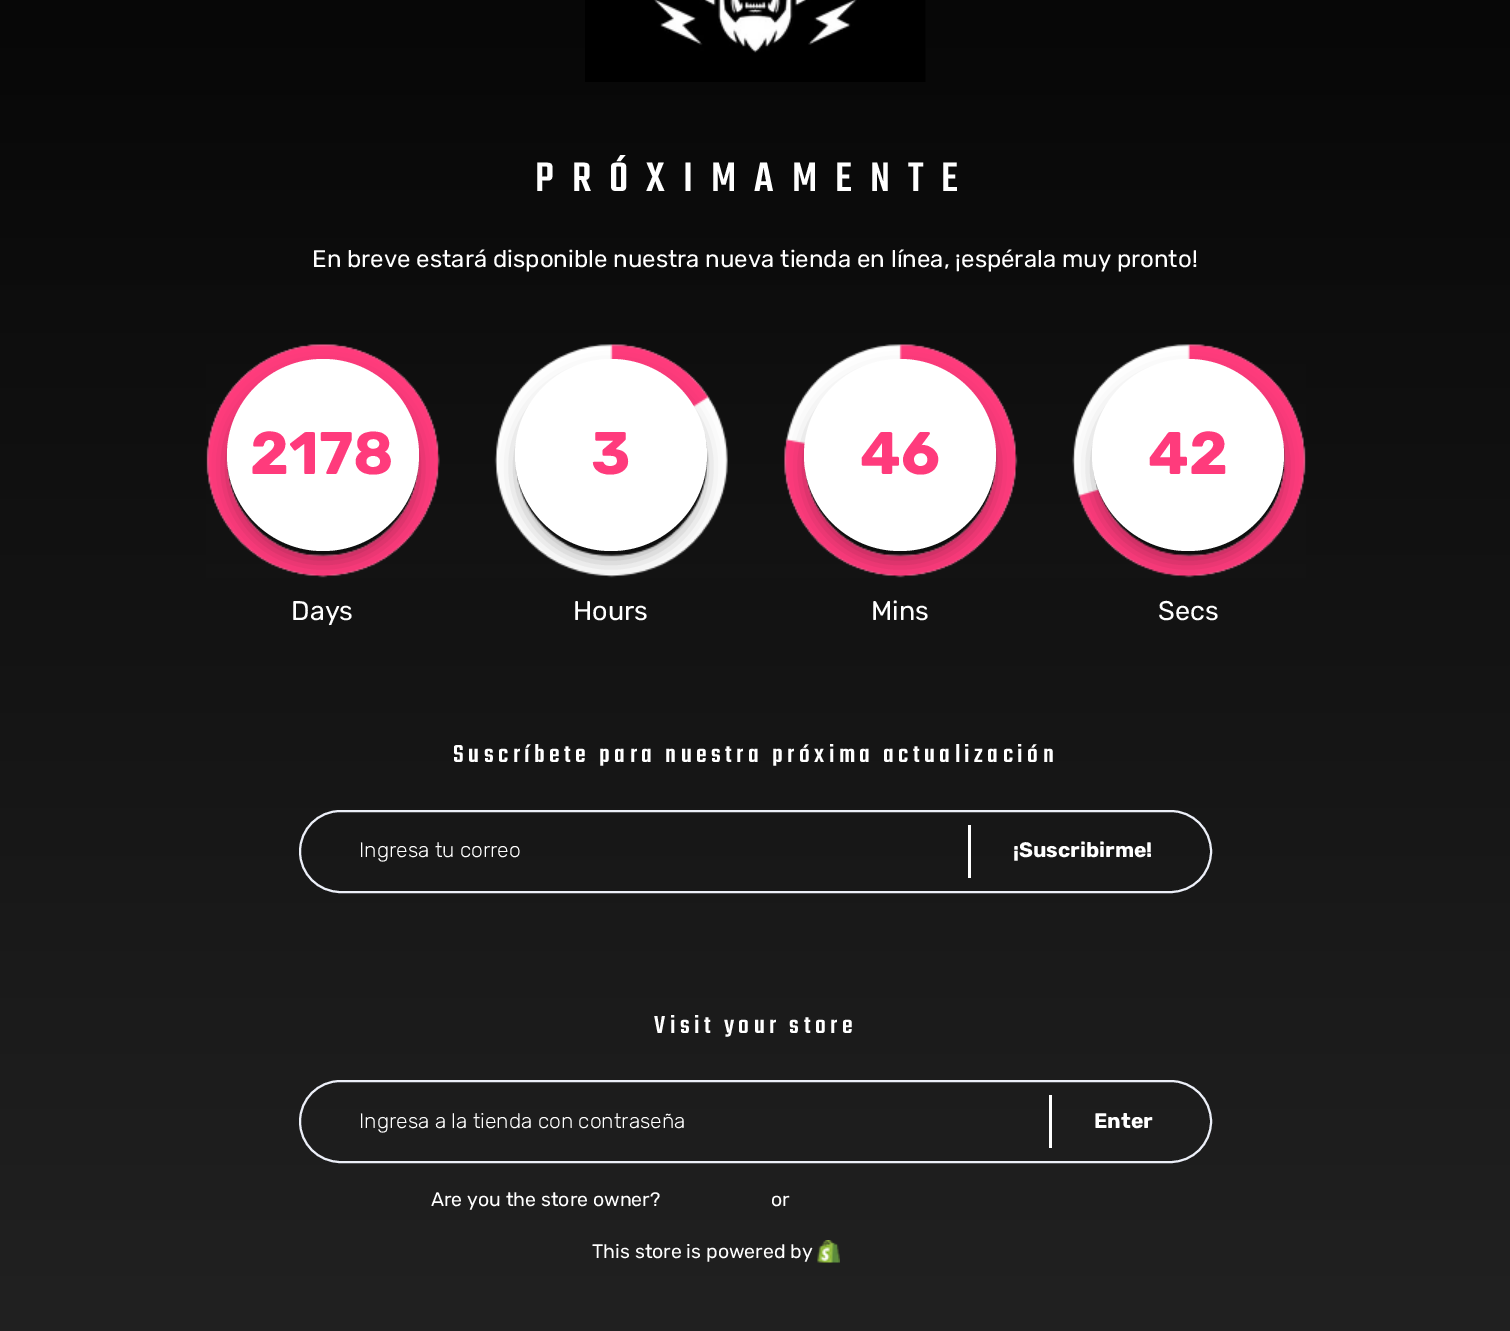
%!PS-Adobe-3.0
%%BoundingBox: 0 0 1510 1331
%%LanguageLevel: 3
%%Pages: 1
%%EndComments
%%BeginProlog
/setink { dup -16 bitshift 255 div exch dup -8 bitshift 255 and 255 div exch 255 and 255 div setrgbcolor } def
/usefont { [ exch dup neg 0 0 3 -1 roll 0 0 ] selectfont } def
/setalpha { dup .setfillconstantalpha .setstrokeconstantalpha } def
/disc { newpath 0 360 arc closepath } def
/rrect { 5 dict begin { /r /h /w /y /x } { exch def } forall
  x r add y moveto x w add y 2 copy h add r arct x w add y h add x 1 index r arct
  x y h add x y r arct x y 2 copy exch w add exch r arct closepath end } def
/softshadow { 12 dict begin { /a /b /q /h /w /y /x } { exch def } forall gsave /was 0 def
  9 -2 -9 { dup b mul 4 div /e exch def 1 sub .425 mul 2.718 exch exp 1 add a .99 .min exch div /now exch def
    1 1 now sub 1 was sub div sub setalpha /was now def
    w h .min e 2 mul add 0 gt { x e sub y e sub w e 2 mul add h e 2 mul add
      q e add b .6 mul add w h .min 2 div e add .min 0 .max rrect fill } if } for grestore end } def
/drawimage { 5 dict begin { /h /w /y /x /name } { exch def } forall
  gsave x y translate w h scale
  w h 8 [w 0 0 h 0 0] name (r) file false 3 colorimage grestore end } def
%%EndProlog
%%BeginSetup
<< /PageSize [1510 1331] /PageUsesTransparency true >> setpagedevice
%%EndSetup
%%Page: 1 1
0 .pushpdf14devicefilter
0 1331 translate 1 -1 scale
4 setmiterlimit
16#FFFFFF setink
0 0 1510 1331 rectfill
gsave 0 0 moveto 1510 0 lineto 1510 1331 lineto 0 1331 lineto closepath clip newpath
<< /ShadingType 2 /ColorSpace /DeviceRGB /Coords [755 -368 755 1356] /Extend [true true] /Function << /FunctionType 2 /Domain [0 1] /C0 [0 0 0] /C1 [0.133 0.133 0.133] /N 1 >> >> shfill grestore
(img1.raw) 585 0 341 82 drawimage
/Teko-Medium 45 usefont
535 191 moveto 18 0 (PRÓXIMAMENTE) ashow
/Rubik-Regular 24 usefont
312 267 moveto (En breve estará disponible nuestra nueva tienda en línea, ¡espérala muy pronto!) show
(img2.raw) 206 344 1100 234 drawimage
16#000000 setink
227 371 192 192 96 9 0.25 softshadow
16#FFFFFF setink
323 455 96 disc fill
/Rubik-Bold 60 usefont
16#FF3B7C setink
250 474 moveto (2178) show
/Rubik-Regular 27 usefont
16#FFFFFF setink
291 620 moveto (Days) show
16#000000 setink
515 371 192 192 96 9 0.25 softshadow
16#FFFFFF setink
611 455 96 disc fill
/Rubik-Bold 60 usefont
16#FF3B7C setink
591 474 moveto (3) show
/Rubik-Regular 27 usefont
16#FFFFFF setink
573 620 moveto (Hours) show
16#000000 setink
804 371 192 192 96 9 0.25 softshadow
16#FFFFFF setink
900 455 96 disc fill
/Rubik-Bold 60 usefont
16#FF3B7C setink
860 474 moveto (46) show
/Rubik-Regular 27 usefont
16#FFFFFF setink
871 620 moveto (Mins) show
16#000000 setink
1092 371 192 192 96 9 0.25 softshadow
16#FFFFFF setink
1188 455 96 disc fill
/Rubik-Bold 60 usefont
16#FF3B7C setink
1148 474 moveto (42) show
/Rubik-Regular 27 usefont
16#FFFFFF setink
1158 620 moveto (Secs) show
/Teko-Medium 27 usefont
453 762 moveto 4.5 0 (Suscríbete para nuestra próxima actualización) ashow
16#ECEFF8 setink
2 setlinewidth
300 811 911 81 40.5 rrect stroke
/Rubik-Light 21 usefont
16#FFFFFF setink
359 857 moveto (Ingresa tu correo) show
968 825 3 53 rectfill
/Rubik-Bold 21 usefont
1013 857 moveto (¡Suscribirme!) show
/Teko-Medium 27 usefont
654 1033 moveto 4.5 0 (Visit your store) ashow
16#ECEFF8 setink
300 1081 911 81 40.5 rrect stroke
/Rubik-Light 21 usefont
16#FFFFFF setink
359 1128 moveto (Ingresa a la tienda con contraseña) show
1049 1095 3 53 rectfill
/Rubik-Bold 21 usefont
1094 1128 moveto (Enter) show
/Rubik-Regular 19.5 usefont
[
    [(Are you the store owner?) 431 1206]
    [(or) 771 1206]
    [(This store is powered by) 592 1258]
] { aload pop moveto show } forall
(img3.raw) 817 1240 23 23 drawimage
.poppdf14devicefilter showpage
%%EOF
